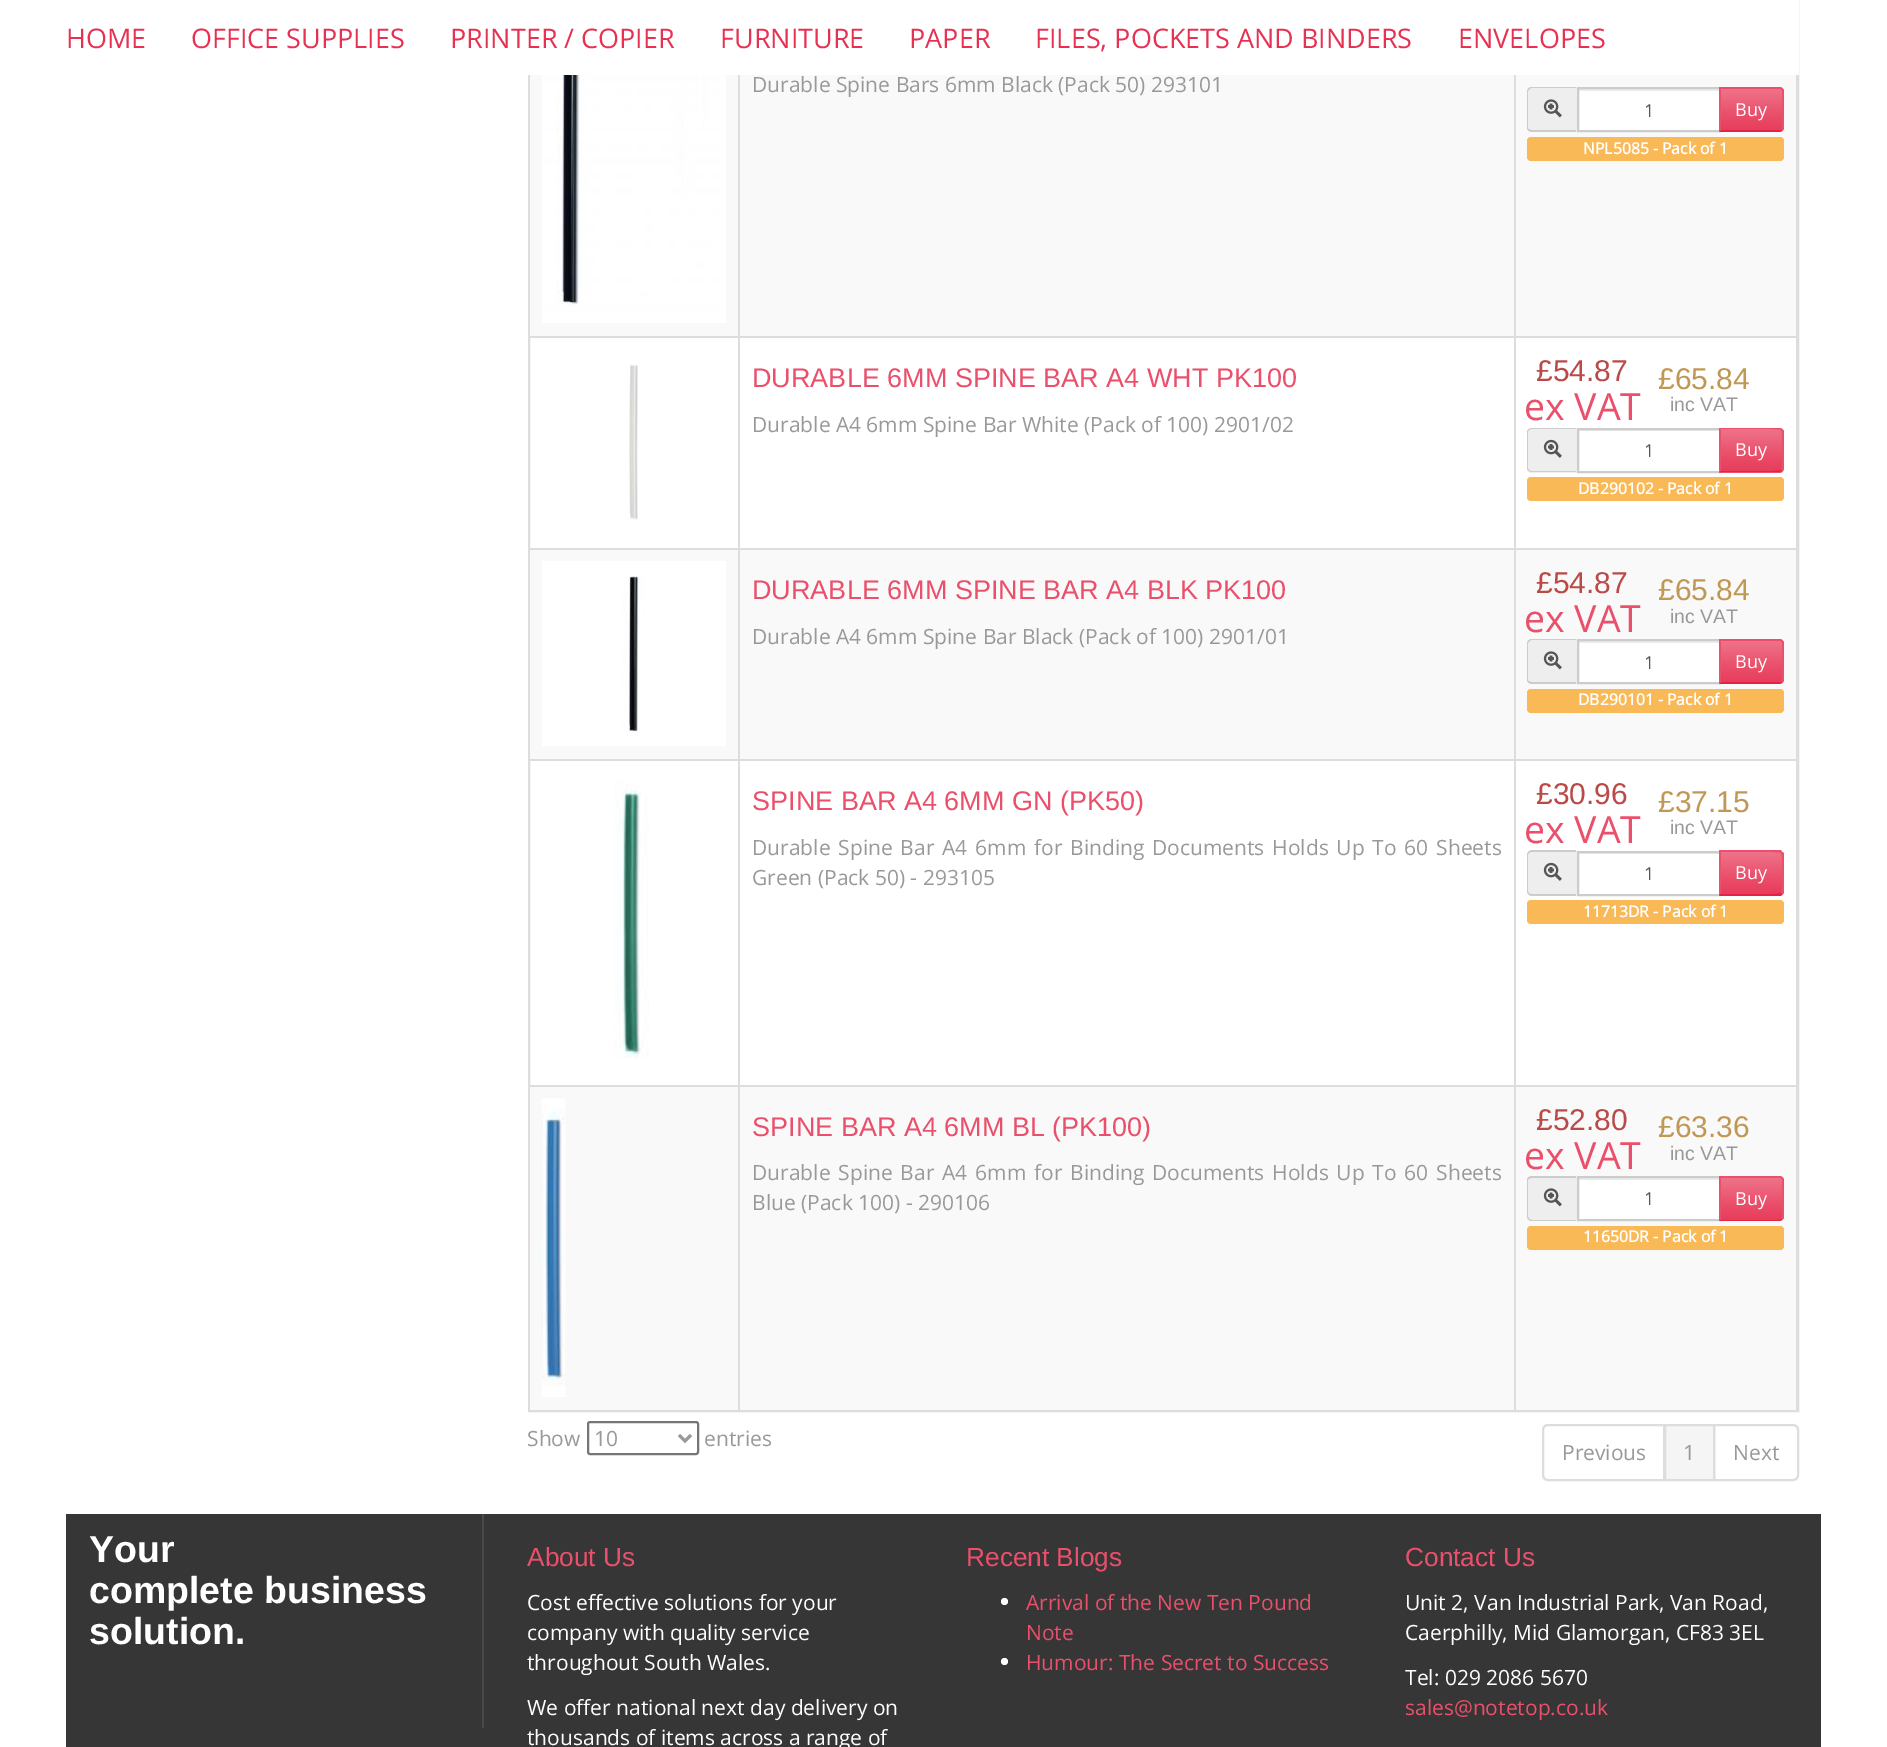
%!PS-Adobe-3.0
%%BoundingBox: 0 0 1887 1747
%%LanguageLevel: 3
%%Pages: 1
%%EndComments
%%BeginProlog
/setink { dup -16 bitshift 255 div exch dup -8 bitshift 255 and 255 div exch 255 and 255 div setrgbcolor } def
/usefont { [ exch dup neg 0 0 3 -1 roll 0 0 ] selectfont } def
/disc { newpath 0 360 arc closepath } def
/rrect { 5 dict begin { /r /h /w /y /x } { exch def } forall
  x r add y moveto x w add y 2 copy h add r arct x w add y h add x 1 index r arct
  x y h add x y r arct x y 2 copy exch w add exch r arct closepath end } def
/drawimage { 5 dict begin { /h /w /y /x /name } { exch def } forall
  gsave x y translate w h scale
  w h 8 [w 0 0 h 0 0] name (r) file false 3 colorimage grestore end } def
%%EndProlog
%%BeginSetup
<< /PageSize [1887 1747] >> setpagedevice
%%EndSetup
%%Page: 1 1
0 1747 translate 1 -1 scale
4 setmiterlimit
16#FFFFFF setink
0 0 1887 1747 rectfill
16#DDDDDD setink
2 setlinewidth
529 -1 1269 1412 rectstroke
16#FFFFFF setink
528 0 1271 75 rectfill
/OpenSans-Regular 27 usefont
16#E63152 setink
[
    [(HOME) 66 48]
    [(OFFICE SUPPLIES) 191 48]
    [(PRINTER / COPIER) 450 48]
    [(FURNITURE) 720 48]
    [(PAPER) 909 48]
    [(FILES, POCKETS AND BINDERS) 1035 48]
    [(ENVELOPES) 1458 48]
] { aload pop moveto show } forall
16#F9F9F9 setink
530 75 1266 261 rectfill
16#DDDDDD setink
738 75 2 261 rectfill
(img1.raw) 542 75 184 248 drawimage
[
    [740 336 1057 2 16#DDDDDD]
    [530 550 1266 209 16#F9F9F9]
    [740 548 1057 2 16#DDDDDD]
    [740 759 1057 2 16#DDDDDD]
    [530 1087 1266 323 16#F9F9F9]
    [740 1085 1057 2 16#DDDDDD]
    [1514 75 2 1335 16#DDDDDD]
] { aload pop setink rectfill } forall
/OpenSans-Regular 21 usefont
16#999999 setink
752 92 moveto (Durable Spine Bars 6mm Black \(Pack 50\) 293101) show
16#DDDDDD setink
1796 75 1 261 rectfill
16#EEEEEE setink
1532 87 moveto 1577 87 lineto 1577 132 lineto 1532 132 lineto 1529 132 1527 130 1527 127 curveto 1527 92 lineto 1527 89 1529 87 1532 87 curveto closepath fill
16#CCCCCC setink
1532 87 moveto 1576 87 lineto 1576 132 lineto 1532 132 lineto 1529 132 1527 130 1527 128 curveto 1527 92 lineto 1527 89 1529 87 1532 87 curveto closepath 1532 88 moveto 1576 88 lineto 1576 130 lineto 1532 130 lineto 1530 130 1528 129 1528 128 curveto 1528 92 lineto 1528 90 1530 88 1532 88 curveto closepath eofill
(img2.raw) 1543 99 19 19 drawimage
16#FFFFFF setink
1579 91 140 39 rectfill
16#ECECEC setink
1578 89 141 2 rectfill
16#CCCCCC setink
1578 88 142 43 rectstroke
/OpenSans-Regular 18 usefont
16#555555 setink
1644 117 moveto (1) show
16#EA4F6B setink
1719 87 moveto 1779 87 lineto 1782 87 1784 89 1784 92 curveto 1784 127 lineto 1784 130 1782 132 1779 132 curveto 1719 132 lineto closepath fill
gsave 1721 89 moveto 1782 89 lineto 1782 131 lineto 1721 131 lineto closepath clip newpath
<< /ShadingType 2 /ColorSpace /DeviceRGB /Coords [1751 89 1751 131] /Extend [true true] /Function << /FunctionType 3 /Domain [0 1] /Functions [<< /FunctionType 2 /Domain [0 1] /C0 [0.933 0.451 0.541] /C1 [0.918 0.31 0.42] /N 1 >> << /FunctionType 2 /Domain [0 1] /C0 [0.918 0.31 0.42] /C1 [0.91 0.239 0.361] /N 1 >>] /Bounds [0.6] /Encode [0 1 0 1] >> >> shfill grestore
1719 87 moveto 1720 88 lineto 1779 88 lineto 1781 89 lineto 1782 88 lineto 1779 87 lineto closepath fill
1784 129 moveto 1782 131 lineto 1781 130 lineto 1782 128 lineto 1782 98 lineto 1782 96 1783 91 1781 89 curveto 1782 88 lineto 1784 90 lineto closepath fill
16#E52145 setink
1779 132 moveto 1782 131 lineto 1781 130 lineto 1779 130 lineto 1721 130 lineto 1719 132 lineto closepath fill
16#EA4F6B setink
1719 87 moveto 1719 132 lineto 1721 130 lineto 1720 130 lineto 1720 88 lineto closepath fill
16#FFFFFF setink
1735 116 moveto (Buy) show
16#F9B957 setink
1527 137 257 24 4 rrect fill
/OpenSans-Bold 15.75 usefont
16#FFFFFF setink
1583 154 moveto (NPL5085 - Pack of 1) show
16#DDDDDD setink
530 336 210 2 rectfill
738 336 2 212 rectfill
(img3.raw) 629 364 9 156 drawimage
/LiberationSans-Regular 27 usefont
16#EA4F6B setink
752 387 moveto (DURABLE 6MM SPINE BAR A4 WHT PK100) show
/OpenSans-Regular 21 usefont
16#999999 setink
752 432 moveto (Durable A4 6mm Spine Bar White \(Pack of 100\) 2901/02) show
16#DDDDDD setink
1796 336 1 212 rectfill
/LiberationSans-Regular 30 usefont
16#B94A48 setink
1536 381 moveto (£54.87) show
/OpenSans-Regular 37.5 usefont
16#EA4F6B setink
1524 420 moveto (ex VAT) show
/LiberationSans-Regular 30 usefont
16#C09853 setink
1658 389 moveto (£65.84) show
/LiberationSans-Regular 19.5 usefont
16#999999 setink
1670 411 moveto (inc VAT) show
16#EEEEEE setink
1532 428 moveto 1577 428 lineto 1577 473 lineto 1532 473 lineto 1529 473 1527 471 1527 468 curveto 1527 433 lineto 1527 430 1529 428 1532 428 curveto closepath fill
16#CCCCCC setink
1532 428 moveto 1576 428 lineto 1576 472 lineto 1532 472 lineto 1529 472 1527 470 1527 468 curveto 1527 432 lineto 1527 430 1529 428 1532 428 curveto closepath 1532 429 moveto 1576 429 lineto 1576 471 lineto 1532 471 lineto 1530 471 1528 470 1528 468 curveto 1528 432 lineto 1528 430 1530 429 1532 429 curveto closepath eofill
(img4.raw) 1543 439 19 19 drawimage
16#ECECEC setink
1578 430 141 1 rectfill
16#CCCCCC setink
1578 429 142 43 rectstroke
/OpenSans-Regular 18 usefont
16#555555 setink
1644 457 moveto (1) show
16#EA4F6B setink
1719 428 moveto 1779 428 lineto 1782 428 1784 430 1784 433 curveto 1784 468 lineto 1784 471 1782 473 1779 473 curveto 1719 473 lineto closepath fill
gsave 1721 429 moveto 1782 429 lineto 1782 471 lineto 1721 471 lineto closepath clip newpath
<< /ShadingType 2 /ColorSpace /DeviceRGB /Coords [1751 429 1751 471] /Extend [true true] /Function << /FunctionType 3 /Domain [0 1] /Functions [<< /FunctionType 2 /Domain [0 1] /C0 [0.933 0.451 0.541] /C1 [0.918 0.31 0.42] /N 1 >> << /FunctionType 2 /Domain [0 1] /C0 [0.918 0.31 0.42] /C1 [0.91 0.239 0.361] /N 1 >>] /Bounds [0.6] /Encode [0 1 0 1] >> >> shfill grestore
1782 429 moveto 1779 428 lineto 1720 428 lineto 1720 429 lineto 1727 429 1779 428 1781 430 curveto closepath fill
1784 469 moveto 1782 471 lineto 1781 470 lineto 1783 469 1783 431 1781 430 curveto 1782 429 lineto 1784 431 lineto closepath fill
16#E52145 setink
1782 471 moveto 1779 472 lineto 1720 472 lineto 1720 471 lineto 1727 471 1779 472 1781 470 curveto closepath fill
16#FFFFFF setink
1735 456 moveto (Buy) show
16#F9B957 setink
1527 477 257 24 4 rrect fill
/OpenSans-Bold 15.75 usefont
16#FFFFFF setink
1578 494 moveto (DB290102 - Pack of 1) show
16#DDDDDD setink
530 548 210 2 rectfill
738 548 2 211 rectfill
(img5.raw) 542 561 184 185 drawimage
/LiberationSans-Regular 27 usefont
16#EA4F6B setink
752 599 moveto (DURABLE 6MM SPINE BAR A4 BLK PK100) show
/OpenSans-Regular 21 usefont
16#999999 setink
752 644 moveto (Durable A4 6mm Spine Bar Black \(Pack of 100\) 2901/01) show
16#DDDDDD setink
1796 548 1 211 rectfill
/LiberationSans-Regular 30 usefont
16#B94A48 setink
1536 593 moveto (£54.87) show
/OpenSans-Regular 37.5 usefont
16#EA4F6B setink
1524 632 moveto (ex VAT) show
/LiberationSans-Regular 30 usefont
16#C09853 setink
1658 600 moveto (£65.84) show
/LiberationSans-Regular 19.5 usefont
16#999999 setink
1670 623 moveto (inc VAT) show
16#EEEEEE setink
1532 639 moveto 1577 639 lineto 1577 684 lineto 1532 684 lineto 1529 684 1527 682 1527 679 curveto 1527 644 lineto 1527 641 1529 639 1532 639 curveto closepath fill
16#CCCCCC setink
1532 639 moveto 1576 639 lineto 1576 684 lineto 1532 684 lineto 1529 684 1527 682 1527 680 curveto 1527 644 lineto 1527 641 1529 639 1532 639 curveto closepath 1532 640 moveto 1576 640 lineto 1576 682 lineto 1532 682 lineto 1530 682 1528 681 1528 680 curveto 1528 644 lineto 1528 642 1530 640 1532 640 curveto closepath eofill
(img2.raw) 1543 651 19 19 drawimage
16#FFFFFF setink
1579 643 140 39 rectfill
16#ECECEC setink
1578 641 141 2 rectfill
16#CCCCCC setink
1578 640 142 43 rectstroke
/OpenSans-Regular 18 usefont
16#555555 setink
1644 669 moveto (1) show
16#EA4F6B setink
1719 639 moveto 1779 639 lineto 1782 639 1784 641 1784 644 curveto 1784 679 lineto 1784 682 1782 684 1779 684 curveto 1719 684 lineto closepath fill
gsave 1721 641 moveto 1782 641 lineto 1782 683 lineto 1721 683 lineto closepath clip newpath
<< /ShadingType 2 /ColorSpace /DeviceRGB /Coords [1751 641 1751 683] /Extend [true true] /Function << /FunctionType 3 /Domain [0 1] /Functions [<< /FunctionType 2 /Domain [0 1] /C0 [0.933 0.451 0.541] /C1 [0.918 0.31 0.42] /N 1 >> << /FunctionType 2 /Domain [0 1] /C0 [0.918 0.31 0.42] /C1 [0.91 0.239 0.361] /N 1 >>] /Bounds [0.6] /Encode [0 1 0 1] >> >> shfill grestore
1719 639 moveto 1720 640 lineto 1779 640 lineto 1781 641 lineto 1782 640 lineto 1779 639 lineto closepath fill
1784 681 moveto 1782 683 lineto 1781 682 lineto 1782 680 lineto 1782 650 lineto 1782 648 1783 643 1781 641 curveto 1782 640 lineto 1784 642 lineto closepath fill
16#E52145 setink
1779 684 moveto 1782 683 lineto 1781 682 lineto 1779 682 lineto 1721 682 lineto 1719 684 lineto closepath fill
16#EA4F6B setink
1719 639 moveto 1719 684 lineto 1721 682 lineto 1720 682 lineto 1720 640 lineto closepath fill
16#FFFFFF setink
1735 668 moveto (Buy) show
16#F9B957 setink
1527 689 257 24 4 rrect fill
/OpenSans-Bold 15.75 usefont
16#FFFFFF setink
1578 705 moveto (DB290101 - Pack of 1) show
16#DDDDDD setink
530 759 210 2 rectfill
738 759 2 326 rectfill
(img6.raw) 614 779 35 280 drawimage
/LiberationSans-Regular 27 usefont
16#EA4F6B setink
752 810 moveto (SPINE BAR A4 6MM GN \(PK50\)) show
/OpenSans-Regular 21 usefont
16#999999 setink
752 855 moveto 2.4 0 32 (Durable Spine Bar A4 6mm for Binding Documents Holds Up To 60 Sheets) widthshow
752 885 moveto (Green \(Pack 50\) - 293105) show
16#DDDDDD setink
1796 759 1 326 rectfill
/LiberationSans-Regular 30 usefont
16#B94A48 setink
1536 804 moveto (£30.96) show
/OpenSans-Regular 37.5 usefont
16#EA4F6B setink
1524 843 moveto (ex VAT) show
/LiberationSans-Regular 30 usefont
16#C09853 setink
1658 812 moveto (£37.15) show
/LiberationSans-Regular 19.5 usefont
16#999999 setink
1670 834 moveto (inc VAT) show
16#EEEEEE setink
1532 851 moveto 1577 851 lineto 1577 896 lineto 1532 896 lineto 1529 896 1527 894 1527 891 curveto 1527 856 lineto 1527 853 1529 851 1532 851 curveto closepath fill
16#CCCCCC setink
1532 850 moveto 1576 850 lineto 1576 896 lineto 1532 896 lineto 1529 896 1527 893 1527 891 curveto 1527 855 lineto 1527 853 1529 850 1532 850 curveto closepath 1532 852 moveto 1576 852 lineto 1576 894 lineto 1532 894 lineto 1530 894 1528 893 1528 891 curveto 1528 855 lineto 1528 853 1530 852 1532 852 curveto closepath eofill
(img4.raw) 1543 862 19 19 drawimage
16#ECECEC setink
1578 853 141 1 rectfill
16#CCCCCC setink
1578 852 142 43 rectstroke
/OpenSans-Regular 18 usefont
16#555555 setink
1644 880 moveto (1) show
16#EA4F6B setink
1719 851 moveto 1779 851 lineto 1782 851 1784 853 1784 856 curveto 1784 891 lineto 1784 894 1782 896 1779 896 curveto 1719 896 lineto closepath fill
gsave 1721 852 moveto 1782 852 lineto 1782 894 lineto 1721 894 lineto closepath clip newpath
<< /ShadingType 2 /ColorSpace /DeviceRGB /Coords [1751 852 1751 894] /Extend [true true] /Function << /FunctionType 3 /Domain [0 1] /Functions [<< /FunctionType 2 /Domain [0 1] /C0 [0.933 0.451 0.541] /C1 [0.918 0.31 0.42] /N 1 >> << /FunctionType 2 /Domain [0 1] /C0 [0.918 0.31 0.42] /C1 [0.91 0.239 0.361] /N 1 >>] /Bounds [0.6] /Encode [0 1 0 1] >> >> shfill grestore
1719 850 moveto 1781 850 lineto 1782 852 lineto 1781 853 lineto 1779 851 1727 852 1720 852 curveto closepath fill
1784 893 moveto 1782 894 lineto 1781 893 lineto 1783 892 1783 854 1781 853 curveto 1782 852 lineto 1784 853 lineto closepath fill
16#E52145 setink
1781 896 moveto 1719 896 lineto 1720 894 lineto 1727 894 1779 895 1781 893 curveto 1782 894 lineto closepath fill
16#EA4F6B setink
1720 852 moveto 1719 850 lineto 1719 896 lineto 1720 894 lineto closepath fill
16#FFFFFF setink
1735 879 moveto (Buy) show
16#F9B957 setink
1527 900 257 24 4 rrect fill
/OpenSans-Bold 15.75 usefont
16#FFFFFF setink
1583 917 moveto (11713DR - Pack of 1) show
16#DDDDDD setink
530 1085 210 2 rectfill
738 1085 2 325 rectfill
(img7.raw) 541 1098 25 299 drawimage
/LiberationSans-Regular 27 usefont
16#EA4F6B setink
752 1136 moveto (SPINE BAR A4 6MM BL \(PK100\)) show
/OpenSans-Regular 21 usefont
16#999999 setink
752 1180 moveto 2.4 0 32 (Durable Spine Bar A4 6mm for Binding Documents Holds Up To 60 Sheets) widthshow
752 1210 moveto (Blue \(Pack 100\) - 290106) show
16#DDDDDD setink
1796 1085 1 325 rectfill
/LiberationSans-Regular 30 usefont
16#B94A48 setink
1536 1130 moveto (£52.80) show
/OpenSans-Regular 37.5 usefont
16#EA4F6B setink
1524 1169 moveto (ex VAT) show
/LiberationSans-Regular 30 usefont
16#C09853 setink
1658 1137 moveto (£63.36) show
/LiberationSans-Regular 19.5 usefont
16#999999 setink
1670 1160 moveto (inc VAT) show
16#EEEEEE setink
1532 1176 moveto 1577 1176 lineto 1577 1221 lineto 1532 1221 lineto 1529 1221 1527 1219 1527 1216 curveto 1527 1181 lineto 1527 1178 1529 1176 1532 1176 curveto closepath fill
16#CCCCCC setink
1532 1176 moveto 1576 1176 lineto 1576 1221 lineto 1532 1221 lineto 1529 1221 1527 1219 1527 1216 curveto 1527 1180 lineto 1527 1178 1529 1176 1532 1176 curveto closepath 1532 1178 moveto 1576 1178 lineto 1576 1220 lineto 1532 1220 lineto 1530 1220 1528 1218 1528 1216 curveto 1528 1180 lineto 1528 1179 1530 1178 1532 1178 curveto closepath eofill
(img2.raw) 1543 1188 19 19 drawimage
16#FFFFFF setink
1579 1180 140 39 rectfill
16#ECECEC setink
1578 1178 141 2 rectfill
16#CCCCCC setink
1578 1177 142 43 rectstroke
/OpenSans-Regular 18 usefont
16#555555 setink
1644 1205 moveto (1) show
16#EA4F6B setink
1719 1176 moveto 1779 1176 lineto 1782 1176 1784 1178 1784 1181 curveto 1784 1216 lineto 1784 1219 1782 1221 1779 1221 curveto 1719 1221 lineto closepath fill
gsave 1721 1178 moveto 1782 1178 lineto 1782 1220 lineto 1721 1220 lineto closepath clip newpath
<< /ShadingType 2 /ColorSpace /DeviceRGB /Coords [1751 1178 1751 1220] /Extend [true true] /Function << /FunctionType 3 /Domain [0 1] /Functions [<< /FunctionType 2 /Domain [0 1] /C0 [0.933 0.451 0.541] /C1 [0.918 0.31 0.42] /N 1 >> << /FunctionType 2 /Domain [0 1] /C0 [0.918 0.31 0.42] /C1 [0.91 0.239 0.361] /N 1 >>] /Bounds [0.6] /Encode [0 1 0 1] >> >> shfill grestore
1719 1176 moveto 1721 1178 lineto 1779 1178 lineto 1781 1178 lineto 1782 1177 lineto 1779 1176 lineto closepath fill
1784 1218 moveto 1782 1220 lineto 1781 1219 lineto 1783 1217 1782 1212 1782 1210 curveto 1782 1180 lineto 1781 1178 lineto 1782 1177 lineto 1784 1179 lineto closepath fill
16#E52145 setink
1779 1221 moveto 1782 1220 lineto 1781 1219 lineto 1779 1220 lineto 1720 1220 lineto 1719 1221 lineto closepath fill
16#EA4F6B setink
1719 1176 moveto 1719 1221 lineto 1720 1220 lineto 1720 1178 lineto 1721 1178 lineto closepath fill
16#FFFFFF setink
1735 1205 moveto (Buy) show
16#F9B957 setink
1527 1226 257 24 4 rrect fill
/OpenSans-Bold 15.75 usefont
16#FFFFFF setink
1583 1242 moveto (11650DR - Pack of 1) show
/OpenSans-Regular 21 usefont
16#999999 setink
527 1446 moveto (Show) show
16#767676 setink
588 1422 110 32 2 rrect stroke
16#999999 setink
3 setlinewidth
679 1435 moveto 685 1441 lineto 691 1435 lineto stroke
594 1446 moveto (10) show
704 1446 moveto (entries) show
16#DDDDDD setink
2 setlinewidth
1548 1425 moveto 1664 1425 lineto 1664 1480 lineto 1548 1480 lineto 1545 1480 1543 1478 1543 1475 curveto 1543 1430 lineto 1543 1427 1545 1425 1548 1425 curveto closepath stroke
16#999999 setink
1562 1460 moveto (Previous) show
16#DDDDDD setink
1714 1425 moveto 1793 1425 lineto 1796 1425 1798 1427 1798 1430 curveto 1798 1475 lineto 1798 1478 1796 1480 1793 1480 curveto 1714 1480 lineto closepath stroke
16#F5F5F5 setink
1665 1425 moveto 1714 1425 lineto 1714 1480 lineto 1665 1480 lineto closepath gsave fill grestore
16#DDDDDD setink
stroke
16#999999 setink
1683 1460 moveto (1) show
1733 1460 moveto (Next) show
16#363636 setink
66 1514 1755 233 rectfill
16#4A4A4A setink
482 1514 2 214 rectfill
/LiberationSans-Bold 37.5 usefont
16#FFFFFF setink
[
    [(Your) 89 1562]
    [(complete business) 89 1603]
    [(solution.) 89 1644]
] { aload pop moveto show } forall
/LiberationSans-Regular 26.25 usefont
16#EA4F6B setink
527 1566 moveto (About Us) show
/OpenSans-Regular 21 usefont
16#FFFFFF setink
[
    [(Cost effective solutions for your) 527 1610]
    [(company with quality service) 527 1640]
    [(throughout South Wales.) 527 1670]
    [(We offer national next day delivery on) 527 1715]
    [(thousands of items across a range of) 527 1745]
] { aload pop moveto show } forall
/LiberationSans-Regular 26.25 usefont
16#EA4F6B setink
966 1566 moveto (Recent Blogs) show
16#FFFFFF setink
1004.5 1601.5 3.5 disc fill
/OpenSans-Regular 21 usefont
16#EA4F6B setink
1026 1610 moveto (Arrival of the New Ten Pound) show
1026 1640 moveto (Note) show
16#FFFFFF setink
1004.5 1661.5 3.5 disc fill
16#EA4F6B setink
1026 1670 moveto (Humour: The Secret to Success) show
/LiberationSans-Regular 26.25 usefont
1405 1566 moveto (Contact Us) show
/OpenSans-Regular 21 usefont
16#FFFFFF setink
[
    [(Unit 2, Van Industrial Park, Van Road,) 1405 1610]
    [(Caerphilly, Mid Glamorgan, CF83 3EL) 1405 1640]
    [(Tel: 029 2086 5670) 1405 1685]
] { aload pop moveto show } forall
16#EA4F6B setink
1405 1715 moveto (sales@notetop.co.uk) show
showpage
%%EOF
